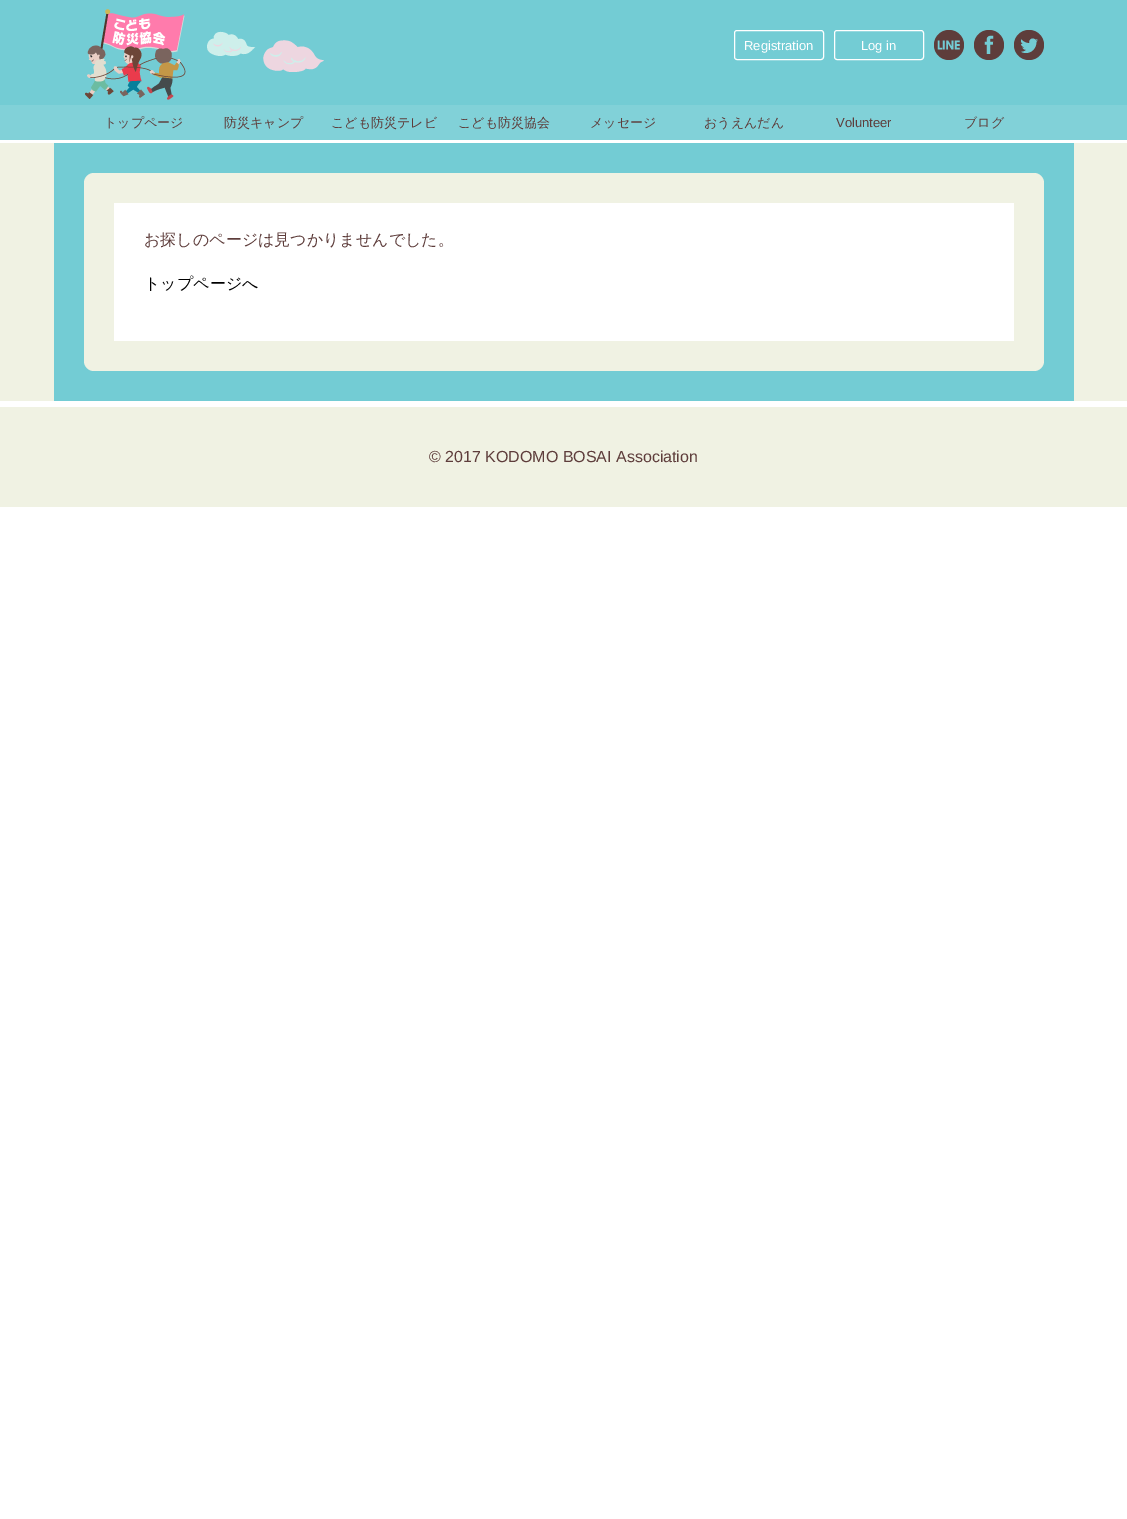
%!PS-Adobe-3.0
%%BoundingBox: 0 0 1127 1519
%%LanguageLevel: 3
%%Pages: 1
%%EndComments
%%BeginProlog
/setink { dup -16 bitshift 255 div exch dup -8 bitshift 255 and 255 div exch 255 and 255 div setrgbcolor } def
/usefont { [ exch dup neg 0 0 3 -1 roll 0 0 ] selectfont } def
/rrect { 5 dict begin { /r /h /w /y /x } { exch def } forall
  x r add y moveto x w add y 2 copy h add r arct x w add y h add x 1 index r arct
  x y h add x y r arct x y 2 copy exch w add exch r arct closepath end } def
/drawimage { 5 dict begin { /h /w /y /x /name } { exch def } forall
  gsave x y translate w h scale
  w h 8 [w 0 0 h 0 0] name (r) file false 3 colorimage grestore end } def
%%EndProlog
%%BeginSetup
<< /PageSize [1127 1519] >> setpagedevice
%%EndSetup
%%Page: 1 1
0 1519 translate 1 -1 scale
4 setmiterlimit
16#FFFFFF setink
0 0 1127 1519 rectfill
16#73CCD4 setink
0 0 1127 105 rectfill
(img1.raw) 85 9 101 91 drawimage
(img2.raw) 207 31 117 41 drawimage
16#FFFFFF setink
734.5 30.5 89 29 2.5 rrect stroke
/LiberationSans-Regular 13 usefont
744 50 moveto (Registration) show
834.5 30.5 89 29 2.5 rrect stroke
861 50 moveto (Log in) show
(img3.raw) 934 30 30 30 drawimage
(img4.raw) 974 30 30 30 drawimage
(img5.raw) 1014 30 30 30 drawimage
16#81D1D8 setink
0 105 1127 35 rectfill
/WenQuanYiZenHei-Medium 13 usefont
16#5E3D3B setink
[
    [(トップページ) 104 127]
    [(防災キャンプ) 224 127]
    [(こども防災テレビ) 331 127]
    [(こども防災協会) 458 127]
    [(メッセージ) 590 127]
    [(おうえんだん) 704 127]
] { aload pop moveto show } forall
/LiberationSans-Regular 13 usefont
836 127 moveto (Volunteer) show
/WenQuanYiZenHei-Medium 13 usefont
964 127 moveto (ブログ) show
16#F0F2E3 setink
0 143 1127 258 rectfill
16#73CCD4 setink
54 143 1020 258 rectfill
16#F0F2E3 setink
84 173 960 198 10 rrect fill
16#FFFFFF setink
114 203 900 138 rectfill
/WenQuanYiZenHei-Medium 16 usefont
16#5E3D3B setink
144 245 moveto (お探しのページは見つかりませんでした。) show
16#000000 setink
144 289 moveto (トップページへ) show
16#F0F2E3 setink
0 407 1127 100 rectfill
/LiberationSans-Regular 16 usefont
16#5E3D3B setink
429 462 moveto (© 2017 KODOMO BOSAI Association) show
showpage
%%EOF
